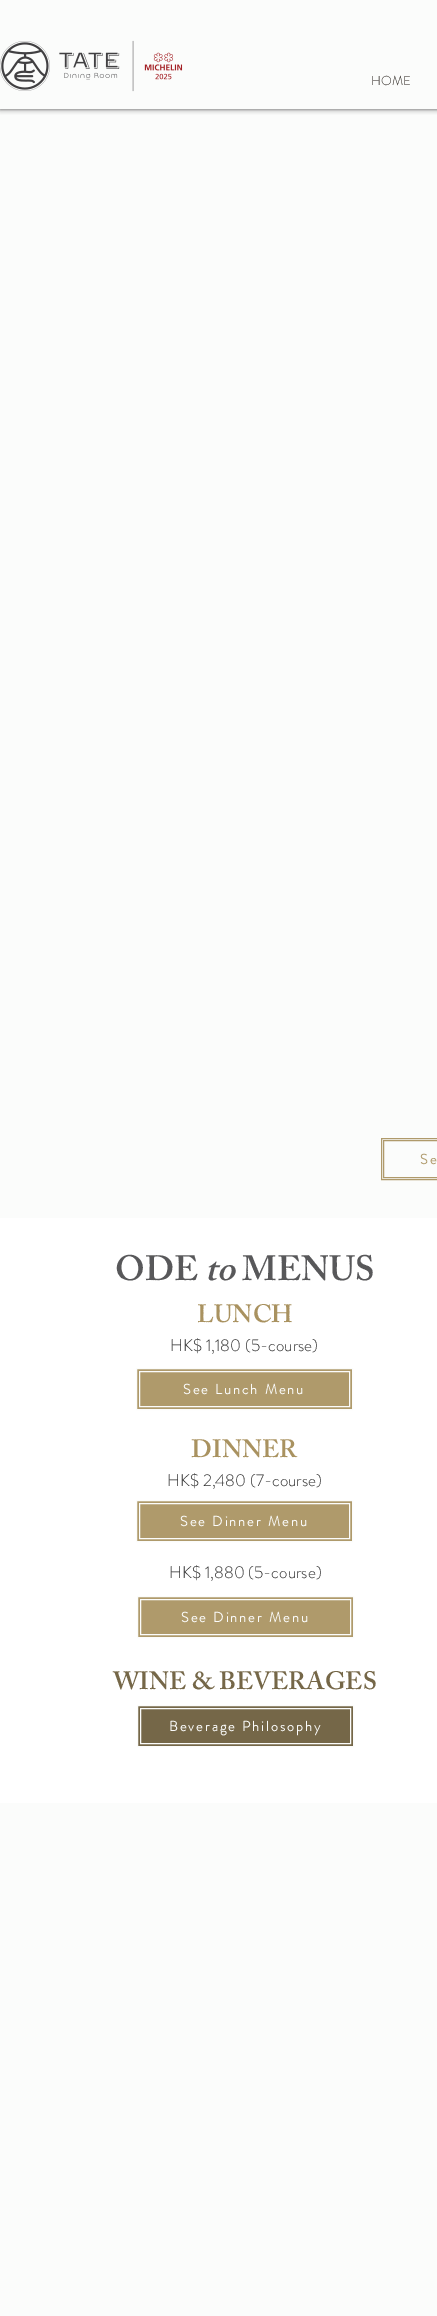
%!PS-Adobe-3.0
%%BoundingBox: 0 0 437 2316
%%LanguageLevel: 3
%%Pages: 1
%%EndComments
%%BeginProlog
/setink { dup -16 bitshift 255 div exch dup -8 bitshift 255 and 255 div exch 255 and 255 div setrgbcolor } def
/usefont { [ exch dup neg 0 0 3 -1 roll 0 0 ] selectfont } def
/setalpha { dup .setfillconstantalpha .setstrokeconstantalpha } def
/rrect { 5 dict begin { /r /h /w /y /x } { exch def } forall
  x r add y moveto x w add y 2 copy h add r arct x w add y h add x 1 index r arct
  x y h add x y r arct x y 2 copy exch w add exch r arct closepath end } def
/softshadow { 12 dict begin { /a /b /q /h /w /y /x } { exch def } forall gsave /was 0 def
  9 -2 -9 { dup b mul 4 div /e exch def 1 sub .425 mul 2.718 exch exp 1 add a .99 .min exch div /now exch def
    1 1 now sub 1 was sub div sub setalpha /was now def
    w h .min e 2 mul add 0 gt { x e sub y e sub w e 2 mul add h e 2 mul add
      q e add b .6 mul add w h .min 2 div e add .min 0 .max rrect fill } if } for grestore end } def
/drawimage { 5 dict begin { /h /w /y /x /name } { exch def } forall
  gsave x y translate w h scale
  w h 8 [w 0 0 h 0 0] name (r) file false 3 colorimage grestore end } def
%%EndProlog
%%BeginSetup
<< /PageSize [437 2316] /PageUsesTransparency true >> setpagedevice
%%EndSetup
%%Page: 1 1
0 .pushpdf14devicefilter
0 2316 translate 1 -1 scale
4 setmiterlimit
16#FBFCFB setink
0 0 437 2316 rectfill
16#000000 setink
0 0 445 109 0 2.5 0.7 softshadow
16#FBFCFB setink
0 0 437 109 rectfill
(img1.raw) 0 40 183 52 drawimage
/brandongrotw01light-Light 13 usefont
16#2E2924 setink
371 85 moveto (HOME) show
16#AF9A6B setink
381.5 1138.5 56 41 rectstroke
383.5 1140.5 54 37 rectstroke
/brandongrotw01light-Bold 14 usefont
420 1164 moveto 2.1 0 (Se) ashow
16#FFFFFF setink
0 1218 437 585 rectfill
/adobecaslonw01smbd-SemiBold 35 usefont
16#58585A setink
115 1280 moveto (ODE) show
/adobecaslonw01smbd-SemiBoldItalic 35 usefont
205 1280 moveto (to) show
/adobecaslonw01smbd-SemiBold 35 usefont
242 1280 moveto (MENUS) show
/adobecaslonw01smbd-SemiBold 25 usefont
16#A99260 setink
197 1322 moveto (LUNCH) show
/brandongrotw01light-Light 17 usefont
16#323232 setink
170 1351 moveto (HK$ 1,180 \(5-course\)) show
16#AF9A6B setink
136.5 1368.5 moveto 352.5 1368.5 lineto 352.5 1409.5 lineto 136.5 1409.5 lineto closepath gsave fill grestore
16#FBFCFB setink
stroke
139.5 1371.5 210 35 rectstroke
/brandongrotw01light-Bold 14 usefont
183 1394 moveto 2.1 0 (See Lunch Menu) ashow
/adobecaslonw01smbd-SemiBold 25 usefont
16#A99260 setink
191 1457 moveto (DINNER) show
/brandongrotw01light-Light 17 usefont
16#323232 setink
167 1486 moveto (HK$ 2,480 \(7-course\)) show
16#AF9A6B setink
136.5 1500.5 moveto 352.5 1500.5 lineto 352.5 1541.5 lineto 136.5 1541.5 lineto closepath gsave fill grestore
16#FBFCFB setink
stroke
139.5 1503.5 210 35 rectstroke
/brandongrotw01light-Bold 14 usefont
180 1526 moveto 2.1 0 (See Dinner Menu) ashow
/brandongrotw01light-Light 17 usefont
16#323232 setink
169 1578 moveto (HK$ 1,880 \(5-course\)) show
16#AF9A6B setink
137.5 1596.5 moveto 353.5 1596.5 lineto 353.5 1637.5 lineto 137.5 1637.5 lineto closepath gsave fill grestore
16#FBFCFB setink
stroke
140.5 1599.5 210 35 rectstroke
/brandongrotw01light-Bold 14 usefont
181 1622 moveto 2.1 0 (See Dinner Menu) ashow
/adobecaslonw01smbd-SemiBold 25 usefont
16#756748 setink
113 1689 moveto (WINE & BEVERAGES) show
137.5 1705.5 moveto 353.5 1705.5 lineto 353.5 1746.5 lineto 137.5 1746.5 lineto closepath gsave fill grestore
16#FBFCFB setink
stroke
140.5 1708.5 210 35 rectstroke
/brandongrotw01light-Bold 14 usefont
169 1731 moveto 2.1 0 (Beverage Philosophy) ashow
.poppdf14devicefilter showpage
%%EOF
